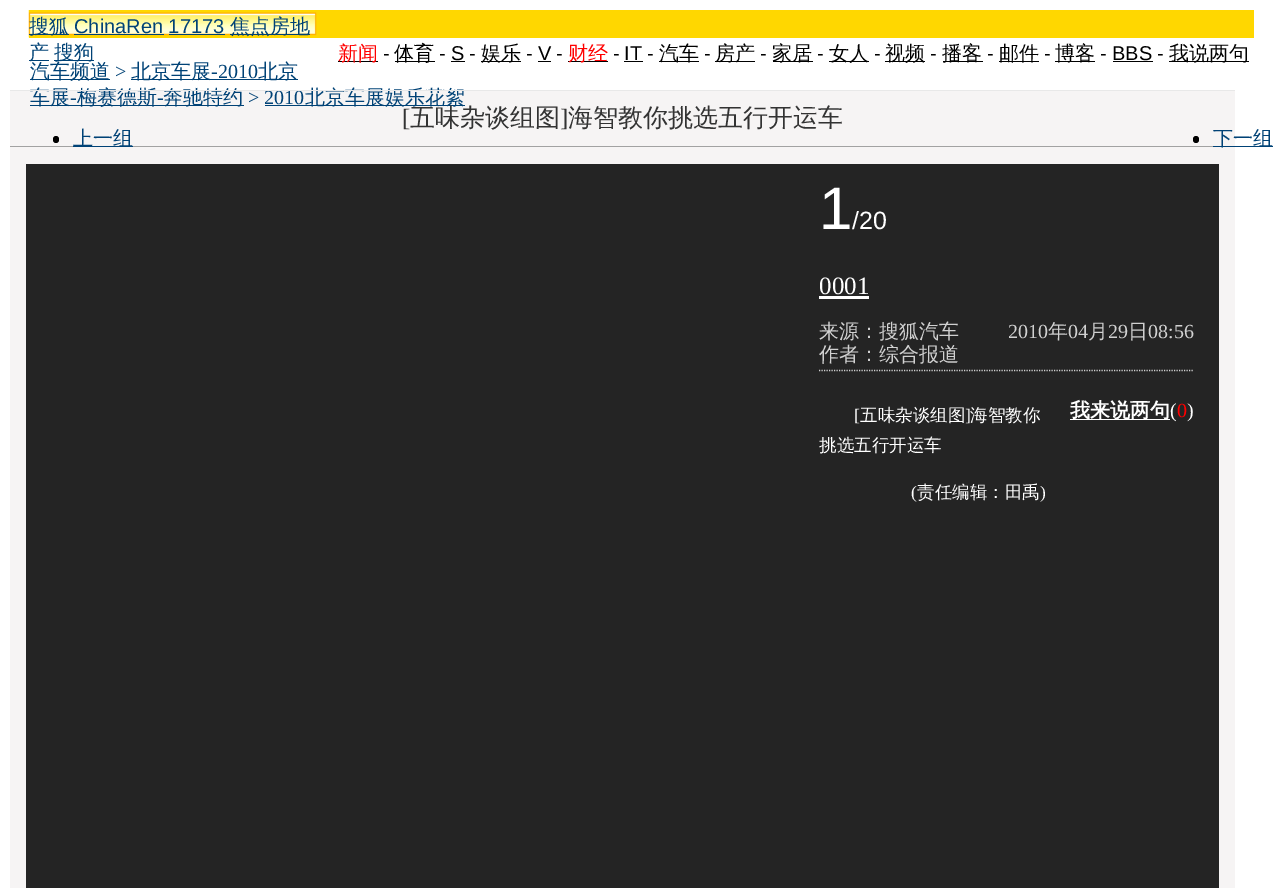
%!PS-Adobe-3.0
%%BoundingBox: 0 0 1282 888
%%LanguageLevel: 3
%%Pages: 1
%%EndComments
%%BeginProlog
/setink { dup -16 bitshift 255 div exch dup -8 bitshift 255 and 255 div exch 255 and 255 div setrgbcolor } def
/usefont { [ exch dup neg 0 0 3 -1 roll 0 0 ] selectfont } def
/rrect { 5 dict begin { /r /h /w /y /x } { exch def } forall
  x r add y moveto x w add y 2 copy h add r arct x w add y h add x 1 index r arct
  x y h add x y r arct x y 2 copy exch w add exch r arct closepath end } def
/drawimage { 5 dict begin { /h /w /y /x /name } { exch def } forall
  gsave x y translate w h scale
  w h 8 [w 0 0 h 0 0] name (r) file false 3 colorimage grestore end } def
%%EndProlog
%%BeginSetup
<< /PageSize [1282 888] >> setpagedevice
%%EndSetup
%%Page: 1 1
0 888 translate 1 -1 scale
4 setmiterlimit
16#FFFFFF setink
0 0 1282 888 rectfill
16#FFD700 setink
29 10 1225 28 rectfill
(img1.raw) 28 10 289 28 drawimage
16#004276 setink
29 34 40 1 rectfill
/WenQuanYiZenHei-Medium 20 usefont
29 33 moveto (搜狐) show
/LiberationSans-Regular 20 usefont
74 33 moveto (ChinaRen 17173) show
74 34 90 1 rectfill
230 34 80 1 rectfill
/WenQuanYiZenHei-Medium 20 usefont
230 33 moveto (焦点房地) show
169 34 56 1 rectfill
29 60 20 1 rectfill
29 59 moveto (产) show
54 60 40 1 rectfill
54 59 moveto (搜狗) show
16#000000 setink
338 61 40 1 rectfill
16#FF0000 setink
338 60 moveto (新闻) show
/LiberationSans-Regular 20 usefont
16#000000 setink
383 60 moveto (-) show
395 61 40 1 rectfill
/WenQuanYiZenHei-Medium 20 usefont
394 60 moveto (体育) show
/LiberationSans-Regular 20 usefont
439 60 moveto (-) show
451 60 moveto (S) show
451 61 14 1 rectfill
469 60 moveto (-) show
481 61 40 1 rectfill
/WenQuanYiZenHei-Medium 20 usefont
481 60 moveto (娱乐) show
/LiberationSans-Regular 20 usefont
526 60 moveto (-) show
538 60 moveto (V) show
538 61 13 1 rectfill
556 60 moveto (-) show
568 61 40 1 rectfill
/WenQuanYiZenHei-Medium 20 usefont
16#FF0000 setink
568 60 moveto (财经) show
/LiberationSans-Regular 20 usefont
16#000000 setink
613 60 moveto (-) show
624 60 moveto (IT) show
624 61 19 1 rectfill
647 60 moveto (-) show
659 61 40 1 rectfill
/WenQuanYiZenHei-Medium 20 usefont
659 60 moveto (汽车) show
/LiberationSans-Regular 20 usefont
704 60 moveto (-) show
715 61 40 1 rectfill
/WenQuanYiZenHei-Medium 20 usefont
715 60 moveto (房产) show
/LiberationSans-Regular 20 usefont
760 60 moveto (-) show
773 61 40 1 rectfill
/WenQuanYiZenHei-Medium 20 usefont
772 60 moveto (家居) show
/LiberationSans-Regular 20 usefont
817 60 moveto (-) show
829 61 40 1 rectfill
/WenQuanYiZenHei-Medium 20 usefont
829 60 moveto (女人) show
/LiberationSans-Regular 20 usefont
874 60 moveto (-) show
885 61 40 1 rectfill
/WenQuanYiZenHei-Medium 20 usefont
885 60 moveto (视频) show
/LiberationSans-Regular 20 usefont
930 60 moveto (-) show
943 61 40 1 rectfill
/WenQuanYiZenHei-Medium 20 usefont
942 60 moveto (播客) show
/LiberationSans-Regular 20 usefont
987 60 moveto (-) show
999 61 40 1 rectfill
/WenQuanYiZenHei-Medium 20 usefont
999 60 moveto (邮件) show
/LiberationSans-Regular 20 usefont
1044 60 moveto (-) show
1055 61 40 1 rectfill
/WenQuanYiZenHei-Medium 20 usefont
1055 60 moveto (博客) show
/LiberationSans-Regular 20 usefont
1100 60 moveto (-) show
1112 60 moveto (BBS) show
1113 61 40 1 rectfill
1157 60 moveto (-) show
1169 61 80 1 rectfill
/WenQuanYiZenHei-Medium 20 usefont
1169 60 moveto (我说两句) show
16#004276 setink
30 79 80 1 rectfill
30 78 moveto (汽车频道) show
/LiberationSerif-Regular 20 usefont
115 78 moveto (>) show
131 79 167 1 rectfill
/WenQuanYiZenHei-Medium 20 usefont
131 78 moveto (北京车展) show
/LiberationSerif-Regular 20 usefont
211 78 moveto (-2010) show
/WenQuanYiZenHei-Medium 20 usefont
258 78 moveto (北京) show
16#F6F4F4 setink
10 91 1225 797 rectfill
16#004276 setink
30 105 214 1 rectfill
30 104 moveto (车展) show
/LiberationSerif-Regular 20 usefont
70 104 moveto (-) show
/WenQuanYiZenHei-Medium 20 usefont
77 104 moveto (梅赛德斯) show
/LiberationSerif-Regular 20 usefont
157 104 moveto (-) show
/WenQuanYiZenHei-Medium 20 usefont
163 104 moveto (奔驰特约) show
/LiberationSerif-Regular 20 usefont
248 104 moveto (> 2010) show
265 105 200 1 rectfill
/WenQuanYiZenHei-Medium 20 usefont
305 104 moveto (北京车展娱乐花絮) show
16#E8E8E8 setink
10 90 1225 1 rectfill
16#A2A2A2 setink
10 146 1203 1 rectfill
/LiberationSerif-Regular 25 usefont
16#333333 setink
402 126 moveto ([) show
/WenQuanYiZenHei-Medium 25 usefont
410 126 moveto (五味杂谈组图) show
/LiberationSerif-Regular 25 usefont
560 126 moveto (]) show
/WenQuanYiZenHei-Medium 25 usefont
568 126 moveto (海智教你挑选五行开运车) show
16#000000 setink
53 136 6 7 3 rrect fill
16#004276 setink
73 146 60 1 rectfill
/WenQuanYiZenHei-Medium 20 usefont
73 145 moveto (上一组) show
16#000000 setink
1193 136 6 7 3 rrect fill
16#004276 setink
1213 146 60 1 rectfill
1213 145 moveto (下一组) show
16#242424 setink
26 164 1193 724 rectfill
/LiberationSans-Regular 60 usefont
16#FFFFFF setink
819 229 moveto (1) show
/LiberationSans-Regular 25 usefont
852 229 moveto (/20) show
/LiberationSerif-Regular 25 usefont
819 294 moveto (0001) show
819 296 50 3 rectfill
16#D1D1D1 setink
1.2 setlinewidth
[1.25 1.25] 0 setdash
819 370.5 moveto 1194 370.5 lineto stroke
/WenQuanYiZenHei-Medium 20 usefont
819 338 moveto (来源：搜狐汽车) show
/LiberationSerif-Regular 20 usefont
1008 338 moveto (2010) show
/WenQuanYiZenHei-Medium 20 usefont
1048 338 moveto (年) show
/LiberationSerif-Regular 20 usefont
1068 338 moveto (04) show
/WenQuanYiZenHei-Medium 20 usefont
1088 338 moveto (月) show
/LiberationSerif-Regular 20 usefont
1108 338 moveto (29) show
/WenQuanYiZenHei-Medium 20 usefont
1128 338 moveto (日) show
/LiberationSerif-Regular 20 usefont
1148 338 moveto (08:56) show
/WenQuanYiZenHei-Medium 20 usefont
819 361 moveto (作者：综合报道) show
/LiberationSerif-Regular 17.5 usefont
16#FFFFFF setink
854 421 moveto ([) show
/WenQuanYiZenHei-Medium 17.5 usefont
860 421 moveto (五味杂谈组图) show
/LiberationSerif-Regular 17.5 usefont
965 421 moveto (]) show
/WenQuanYiZenHei-Medium 17.5 usefont
970 421 moveto (海智教你) show
819 451 moveto (挑选五行开运车) show
/LiberationSerif-Regular 17.5 usefont
911 498 moveto (\() show
/WenQuanYiZenHei-Medium 17.5 usefont
917 498 moveto (责任编辑：田禹) show
/LiberationSerif-Regular 17.5 usefont
1040 498 moveto (\)) show
1070 419 100 1 rectfill
/WenQuanYiZenHei-Bold 20 usefont
1070 417 moveto (我来说两句) show
/LiberationSerif-Regular 20 usefont
1170 417 moveto (\() show
16#FF0000 setink
1177 417 moveto (0) show
16#FFFFFF setink
1187 417 moveto (\)) show
showpage
%%EOF
